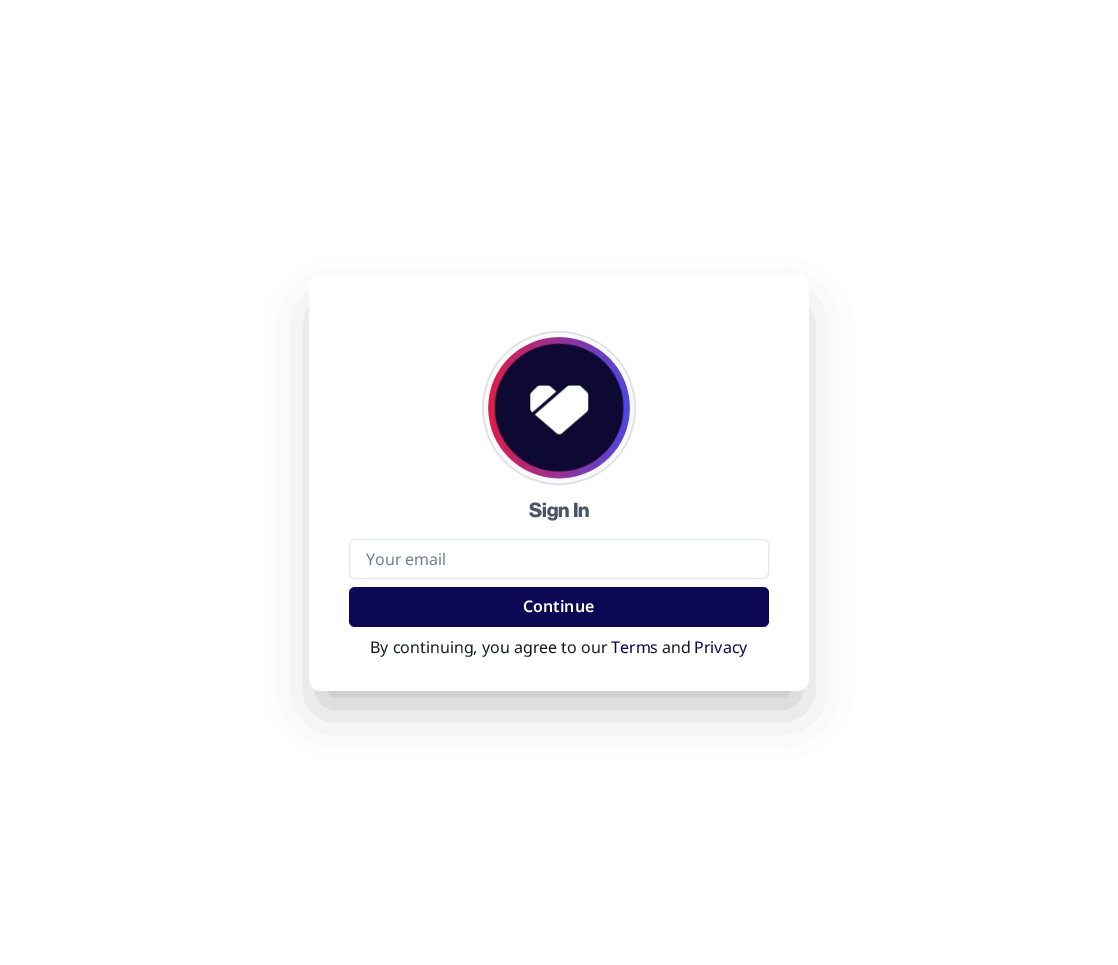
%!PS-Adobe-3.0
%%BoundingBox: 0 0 1118 965
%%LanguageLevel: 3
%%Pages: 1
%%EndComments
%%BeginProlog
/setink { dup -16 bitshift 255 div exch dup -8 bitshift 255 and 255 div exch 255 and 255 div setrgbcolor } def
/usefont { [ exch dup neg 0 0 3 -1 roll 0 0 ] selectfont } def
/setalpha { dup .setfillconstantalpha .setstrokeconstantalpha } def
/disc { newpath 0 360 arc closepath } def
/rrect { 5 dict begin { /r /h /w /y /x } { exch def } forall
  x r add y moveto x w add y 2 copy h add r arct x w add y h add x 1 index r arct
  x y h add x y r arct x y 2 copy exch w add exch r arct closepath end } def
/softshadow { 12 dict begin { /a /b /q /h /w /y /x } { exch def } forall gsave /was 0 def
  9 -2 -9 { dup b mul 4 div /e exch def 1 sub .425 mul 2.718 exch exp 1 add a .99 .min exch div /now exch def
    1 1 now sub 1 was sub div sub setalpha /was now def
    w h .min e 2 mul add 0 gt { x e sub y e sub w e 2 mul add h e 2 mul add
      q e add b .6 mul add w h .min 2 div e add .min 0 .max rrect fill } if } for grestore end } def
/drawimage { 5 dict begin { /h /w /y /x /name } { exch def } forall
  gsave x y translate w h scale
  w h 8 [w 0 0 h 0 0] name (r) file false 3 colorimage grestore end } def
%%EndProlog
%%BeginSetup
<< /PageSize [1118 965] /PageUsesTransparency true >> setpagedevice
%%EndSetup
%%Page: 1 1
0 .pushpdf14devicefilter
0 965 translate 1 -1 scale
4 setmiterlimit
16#FFFFFF setink
0 0 1118 965 rectfill
16#000000 setink
321 312 476 392 0 25 0.25 softshadow
16#FFFFFF setink
309 275 500 416 12 rrect fill
16#E0E0E0 setink
2 setlinewidth
559 408 76 disc stroke
16#FFFFFF setink
559 408 73 disc gsave fill grestore
16#F7FAFC setink
4 setlinewidth
stroke
(img1.raw) 488 337 142 142 drawimage
/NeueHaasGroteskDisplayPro-Bold 20 usefont
16#4A5568 setink
529 517 moveto (Sign In) show
16#E2E8F0 setink
1 setlinewidth
349.5 539.5 419 39 5.5 rrect stroke
/NotoSans-Regular 16 usefont
16#718096 setink
366 565 moveto (Your email) show
16#0C0853 setink
349 587 420 40 6 rrect fill
/NotoSans-SemiBold 16 usefont
16#FFFFFF setink
523 612 moveto (Continue) show
/NotoSans-Regular 16 usefont
16#171923 setink
370 653 moveto (By continuing, you agree to our) show
16#0C0853 setink
611 653 moveto (Terms) show
16#171923 setink
662 653 moveto (and) show
16#0C0853 setink
694 653 moveto (Privacy) show
.poppdf14devicefilter showpage
%%EOF
